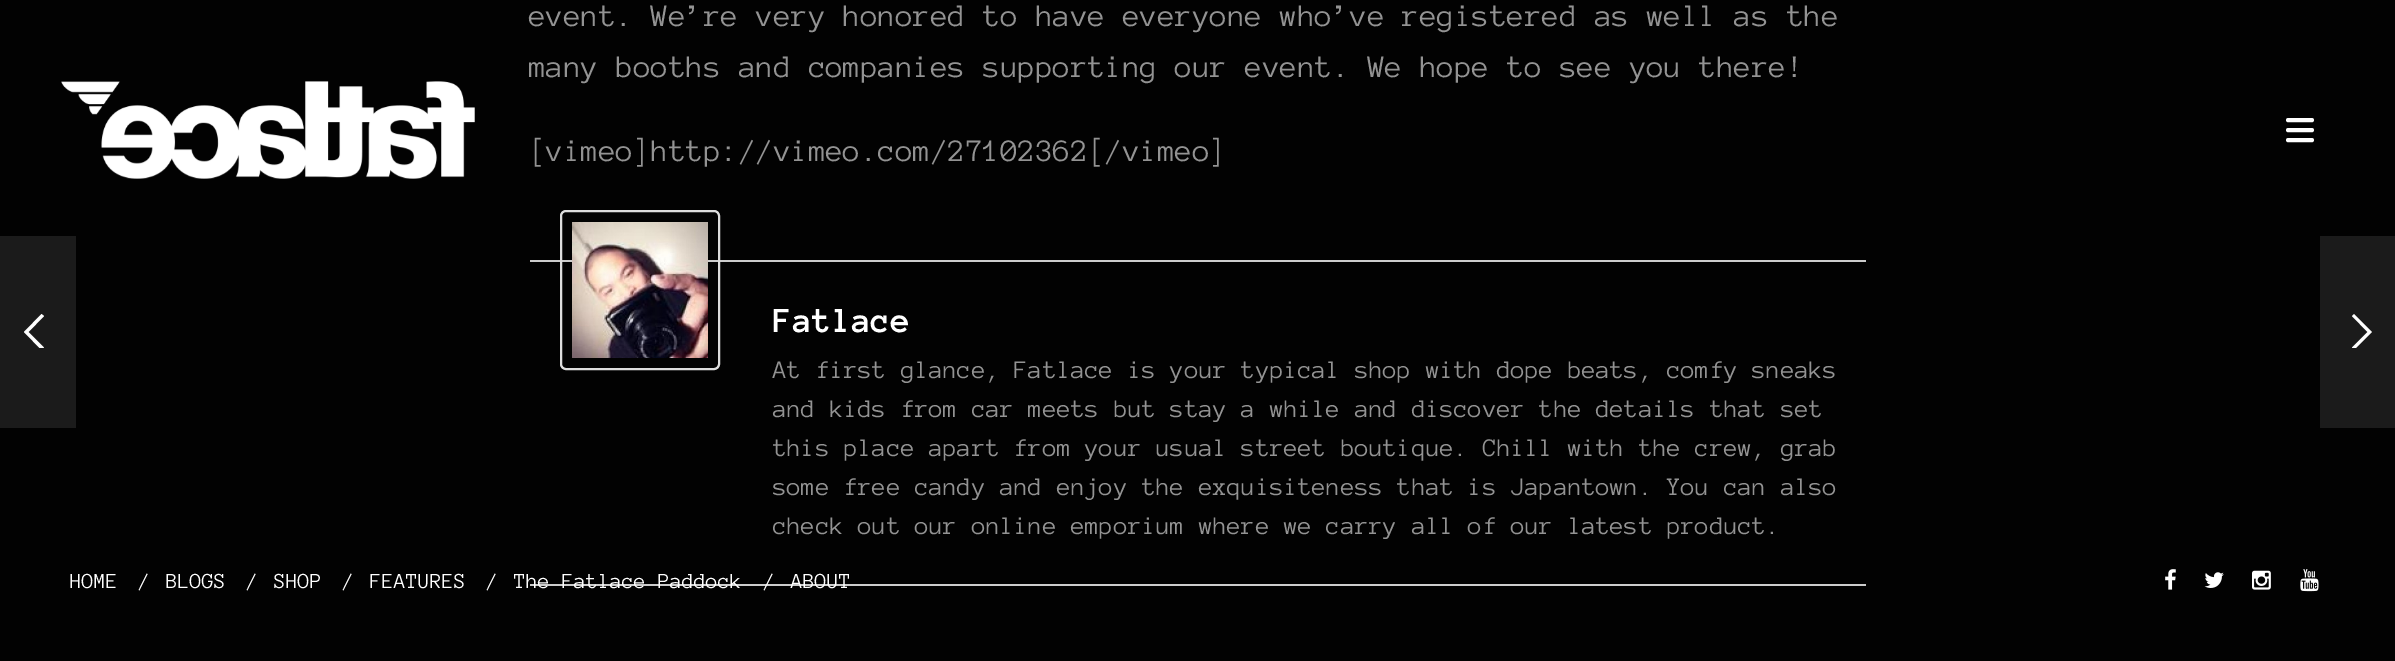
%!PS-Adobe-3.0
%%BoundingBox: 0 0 2395 661
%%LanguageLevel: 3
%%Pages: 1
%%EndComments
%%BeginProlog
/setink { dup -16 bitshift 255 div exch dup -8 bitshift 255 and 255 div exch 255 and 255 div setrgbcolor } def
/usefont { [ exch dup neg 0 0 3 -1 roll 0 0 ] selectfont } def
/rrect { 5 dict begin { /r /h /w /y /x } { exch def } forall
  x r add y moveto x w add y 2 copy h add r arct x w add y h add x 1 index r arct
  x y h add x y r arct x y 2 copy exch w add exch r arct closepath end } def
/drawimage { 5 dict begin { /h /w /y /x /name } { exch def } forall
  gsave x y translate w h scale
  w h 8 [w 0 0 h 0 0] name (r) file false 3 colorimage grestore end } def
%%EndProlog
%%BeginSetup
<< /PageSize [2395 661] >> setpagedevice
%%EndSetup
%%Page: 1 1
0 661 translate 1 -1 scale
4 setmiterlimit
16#020202 setink
0 0 2395 661 rectfill
/AnonymousPro-Regular 32 usefont
16#939393 setink
[
    [(event. We’re very honored to have everyone who’ve registered as well as the) 529 26]
    [(many booths and companies supporting our event. We hope to see you there!) 529 77]
    [([vimeo]http://vimeo.com/27102362[/vimeo]) 529 161]
] { aload pop moveto show } forall
16#CCCCCC setink
530 260 1336 2 rectfill
530 584 1336 2 rectfill
16#DDDDDD setink
2 setlinewidth
561 211 158 158 5 rrect stroke
(img1.raw) 572 222 136 136 drawimage
/AnonymousPro-Bold 36 usefont
16#FFFFFF setink
773 332 moveto (Fatlace) show
/AnonymousPro-Regular 26 usefont
16#939393 setink
[
    [(At first glance, Fatlace is your typical shop with dope beats, comfy sneaks) 773 378]
    [(and kids from car meets but stay a while and discover the details that set) 773 417]
    [(this place apart from your usual street boutique. Chill with the crew, grab) 773 456]
    [(some free candy and enjoy the exquisiteness that is Japantown. You can also) 773 495]
    [(check out our online emporium where we carry all of our latest product.) 773 534]
] { aload pop moveto show } forall
(img2.raw) 61 81 414 98 drawimage
16#FFFFFF setink
4 setlinewidth
1 setlinecap
1 setlinejoin
2288 120 moveto 2312 120 lineto 2288 130 moveto 2312 130 lineto 2288 140 moveto 2312 140 lineto stroke
16#1B1B1B setink
0 236 76 192 rectfill
gsave
24 314 20 34 rectclip
16#FFFFFF setink
44 316 moveto 41.5 314 lineto 24 332 lineto 41.5 350 lineto 44 347.5 lineto 28.5 332 lineto closepath eofill
grestore
2320 236 75 192 rectfill
gsave
2352 314 20 34 rectclip
16#FFFFFF setink
2352 347.5 moveto 2354 350 lineto 2372 332 lineto 2354 314 lineto 2352 316 lineto 2367.5 332 lineto closepath eofill
grestore
/AnonymousPro-Regular 22 usefont
16#FFFFFF setink
[
    [(HOME) 70 588]
    [(/) 138 588]
    [(BLOGS) 166 588]
    [(/) 246 588]
    [(SHOP) 274 588]
    [(/) 342 588]
    [(FEATURES) 370 588]
    [(/) 486 588]
    [(The Fatlace Paddock) 514 588]
    [(/) 763 588]
    [(ABOUT) 791 588]
] { aload pop moveto show } forall
(img3.raw) 2165 569 11 21 drawimage
(img4.raw) 2204 572 20 16 drawimage
(img5.raw) 2252 570 19 20 drawimage
(img6.raw) 2300 569 19 23 drawimage
showpage
%%EOF
